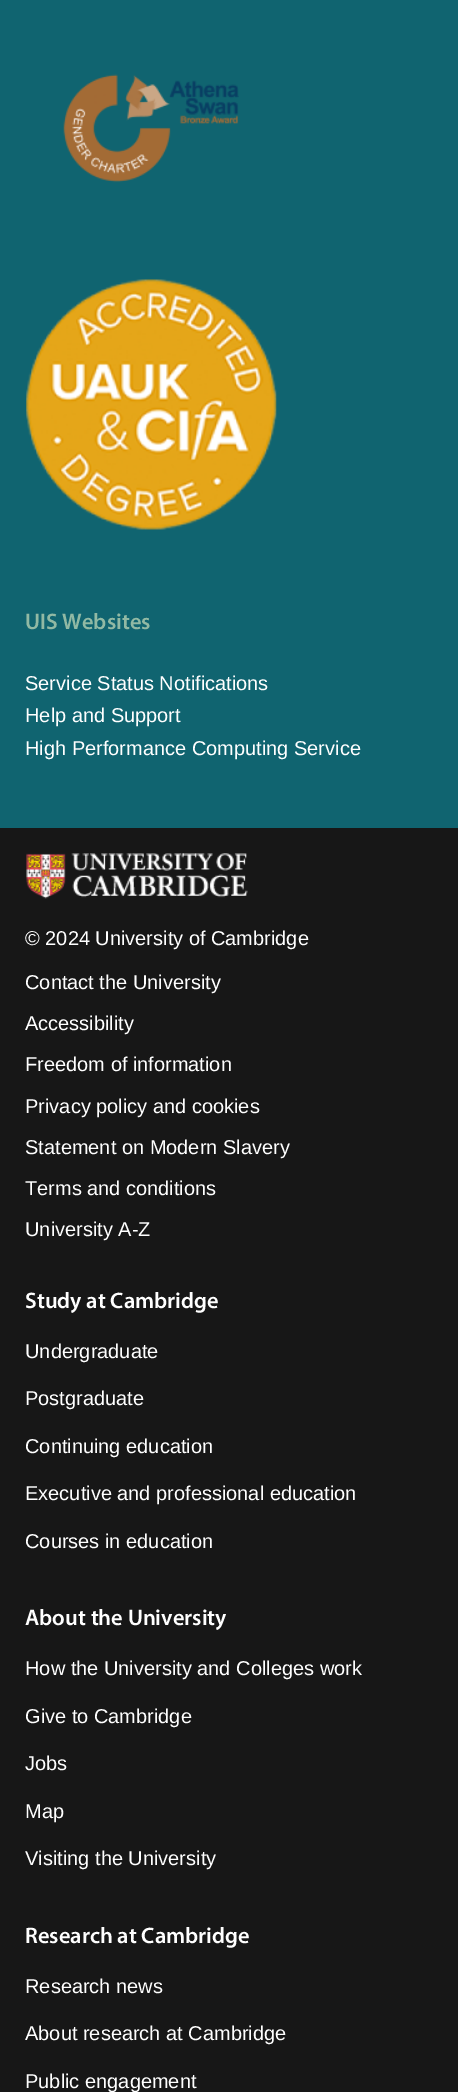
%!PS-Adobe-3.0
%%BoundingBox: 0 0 458 2092
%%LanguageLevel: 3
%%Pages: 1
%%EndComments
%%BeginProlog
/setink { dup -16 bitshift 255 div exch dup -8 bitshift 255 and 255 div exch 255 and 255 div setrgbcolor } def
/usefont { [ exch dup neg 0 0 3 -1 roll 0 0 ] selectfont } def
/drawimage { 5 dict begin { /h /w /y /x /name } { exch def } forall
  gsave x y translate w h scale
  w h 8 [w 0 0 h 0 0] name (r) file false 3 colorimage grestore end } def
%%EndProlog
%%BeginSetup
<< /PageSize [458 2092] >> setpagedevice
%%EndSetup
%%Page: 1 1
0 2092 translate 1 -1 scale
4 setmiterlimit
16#106470 setink
0 0 458 2092 rectfill
(img1.raw) 63 74 176 109 drawimage
(img2.raw) 26 279 251 251 drawimage
/Myriad-SemiBold 22.5 usefont
16#91B9A4 setink
25 629 moveto (UIS Websites) show
/LiberationSans-Regular 20 usefont
16#FFFFFF setink
[
    [(Service Status Notifications) 25 690]
    [(Help and Support) 25 722]
    [(High Performance Computing Service) 25 755]
] { aload pop moveto show } forall
16#171717 setink
0 828 458 1264 rectfill
(img3.raw) 26 853 222 46 drawimage
16#FFFFFF setink
[
    [(© 2024 University of Cambridge) 25 945]
    [(Contact the University) 25 989]
    [(Accessibility) 25 1030]
    [(Freedom of information) 25 1071]
    [(Privacy policy and cookies) 25 1113]
    [(Statement on Modern Slavery) 25 1154]
    [(Terms and conditions) 25 1195]
    [(University A-Z) 25 1236]
] { aload pop moveto show } forall
/Myriad-SemiBold 22.5 usefont
25 1308 moveto (Study at Cambridge) show
/LiberationSans-Regular 20 usefont
[
    [(Undergraduate) 25 1358]
    [(Postgraduate) 25 1405]
    [(Continuing education) 25 1453]
    [(Executive and professional education) 25 1500]
    [(Courses in education) 25 1548]
] { aload pop moveto show } forall
/Myriad-SemiBold 22.5 usefont
25 1625 moveto (About the University) show
/LiberationSans-Regular 20 usefont
[
    [(How the University and Colleges work) 25 1675]
    [(Give to Cambridge) 25 1723]
    [(Jobs) 25 1770]
    [(Map) 25 1818]
    [(Visiting the University) 25 1865]
] { aload pop moveto show } forall
/Myriad-SemiBold 22.5 usefont
25 1943 moveto (Research at Cambridge) show
/LiberationSans-Regular 20 usefont
[
    [(Research news) 25 1993]
    [(About research at Cambridge) 25 2040]
    [(Public engagement) 25 2088]
] { aload pop moveto show } forall
showpage
%%EOF
